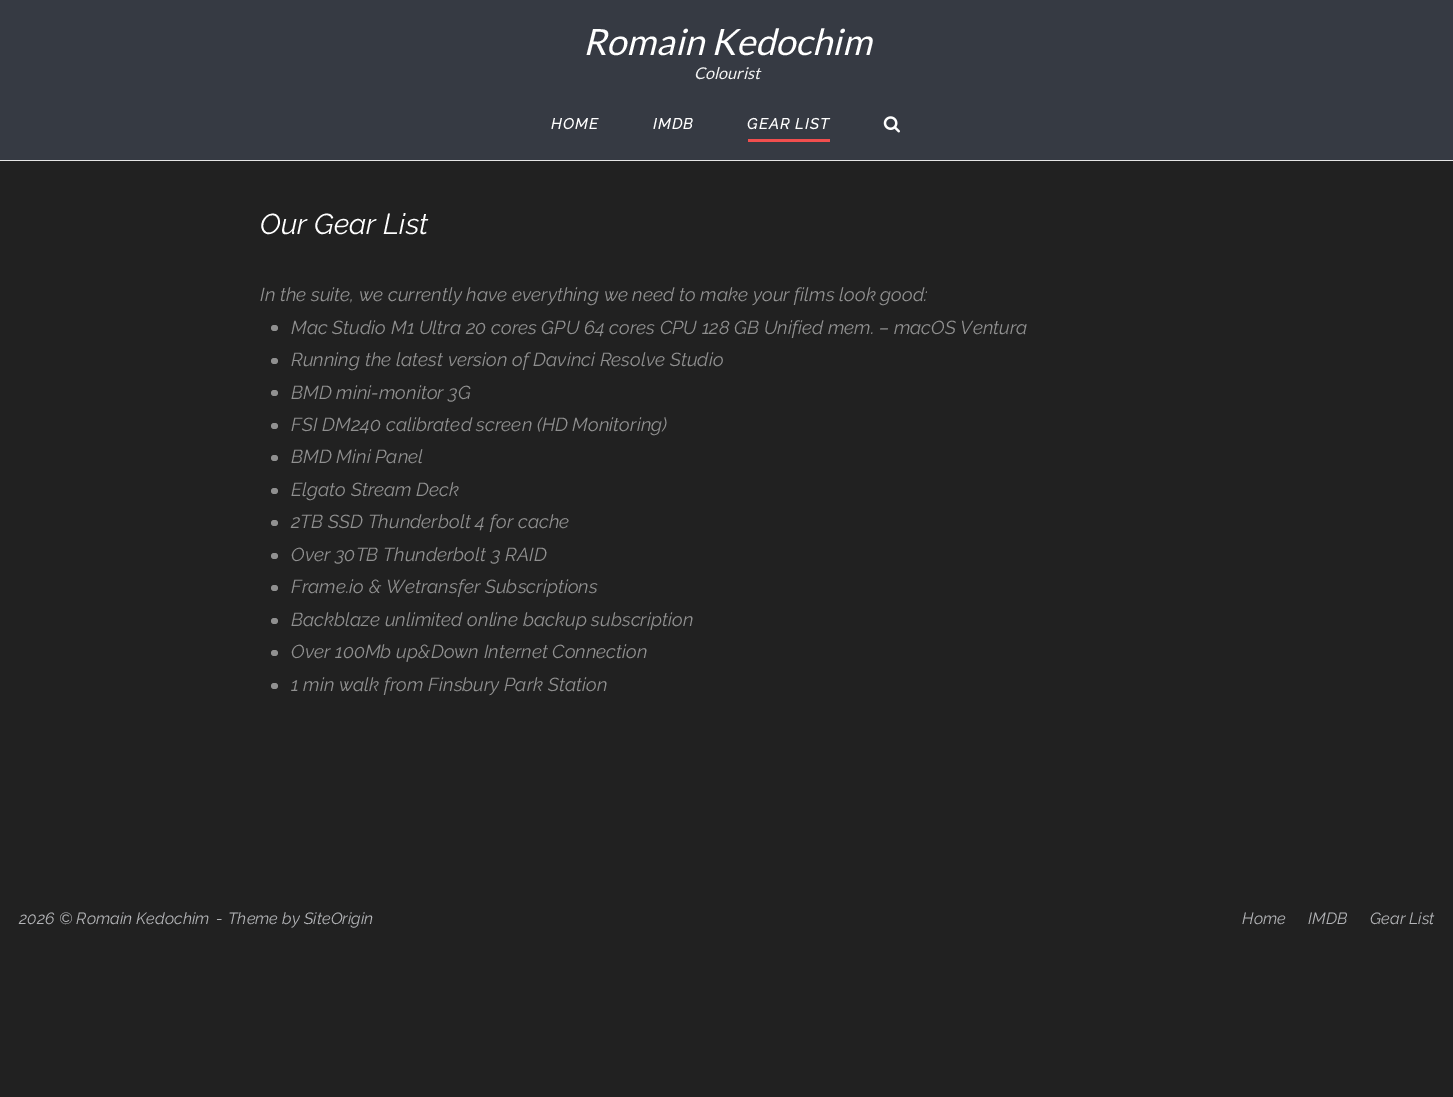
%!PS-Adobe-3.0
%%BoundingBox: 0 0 1453 1097
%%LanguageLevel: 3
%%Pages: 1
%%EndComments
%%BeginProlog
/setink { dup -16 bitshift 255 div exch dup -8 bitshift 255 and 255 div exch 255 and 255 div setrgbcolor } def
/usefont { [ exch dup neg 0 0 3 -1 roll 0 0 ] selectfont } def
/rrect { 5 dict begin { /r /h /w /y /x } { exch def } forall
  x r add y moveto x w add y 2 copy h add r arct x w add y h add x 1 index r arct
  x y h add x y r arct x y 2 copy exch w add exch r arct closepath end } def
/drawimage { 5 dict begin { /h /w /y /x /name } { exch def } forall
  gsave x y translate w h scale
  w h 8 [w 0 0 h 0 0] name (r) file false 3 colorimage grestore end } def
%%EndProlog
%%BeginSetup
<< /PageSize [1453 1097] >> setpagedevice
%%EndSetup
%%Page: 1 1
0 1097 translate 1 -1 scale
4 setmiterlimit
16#212121 setink
0 0 1453 1097 rectfill
16#363A43 setink
0 0 1453 160 rectfill
16#E6E6E6 setink
0 160 1453 1 rectfill
/Lato-Italic 36.25 usefont
16#FFFFFF setink
583 55 moveto (Romain Kedochim) show
/Lato-Italic 16.25 usefont
16#F2F2F2 setink
694 79 moveto (Colourist) show
/Raleway-BoldItalic 15 usefont
16#FFFFFF setink
551 129 moveto 1.25 0 (HOME) ashow
653 129 moveto 1.25 0 (IMDB) ashow
16#F14E4E setink
748 139 82 3 rectfill
16#FFFFFF setink
747 129 moveto 1.25 0 (GEAR LIST) ashow
(img1.raw) 883 116 17 17 drawimage
/Raleway-ThinItalic 28.75 usefont
260 234 moveto (Our Gear List) show
/Raleway-ThinItalic 18.75 usefont
16#909090 setink
260 301 moveto (In the suite, we currently have everything we need to make your films look good:) show
271 325 7 6 3 rrect fill
291 334 moveto (Mac Studio M1 Ultra 20 cores GPU 64 cores CPU 128 GB Unified mem. – macOS Ventura) show
271 358 7 6 3 rrect fill
291 366 moveto (Running the latest version of Davinci Resolve Studio) show
271 390 7 6 3 rrect fill
291 399 moveto (BMD mini-monitor 3G) show
271 423 7 6 3 rrect fill
291 431 moveto (FSI DM240 calibrated screen \(HD Monitoring\)) show
271 455 7 6 3 rrect fill
291 463 moveto (BMD Mini Panel) show
271 488 7 6 3 rrect fill
291 496 moveto (Elgato Stream Deck) show
271 520 7 6 3 rrect fill
291 528 moveto (2TB SSD Thunderbolt 4 for cache) show
271 553 7 6 3 rrect fill
291 561 moveto (Over 30TB Thunderbolt 3 RAID) show
271 585 7 6 3 rrect fill
291 593 moveto (Frame.io & Wetransfer Subscriptions) show
271 618 7 6 3 rrect fill
291 626 moveto (Backblaze unlimited online backup subscription) show
271 650 7 6 3 rrect fill
291 658 moveto (Over 100Mb up&Down Internet Connection) show
271 683 7 6 3 rrect fill
291 691 moveto (1 min walk from Finsbury Park Station) show
/Raleway-ThinItalic 16.25 usefont
16#B4B5B8 setink
[
    [(2026 © Romain Kedochim) 19 924]
    [(-) 216 924]
    [(Theme by SiteOrigin) 228 924]
    [(Home) 1242 924]
    [(IMDB) 1308 924]
    [(Gear List) 1370 924]
] { aload pop moveto show } forall
showpage
%%EOF
